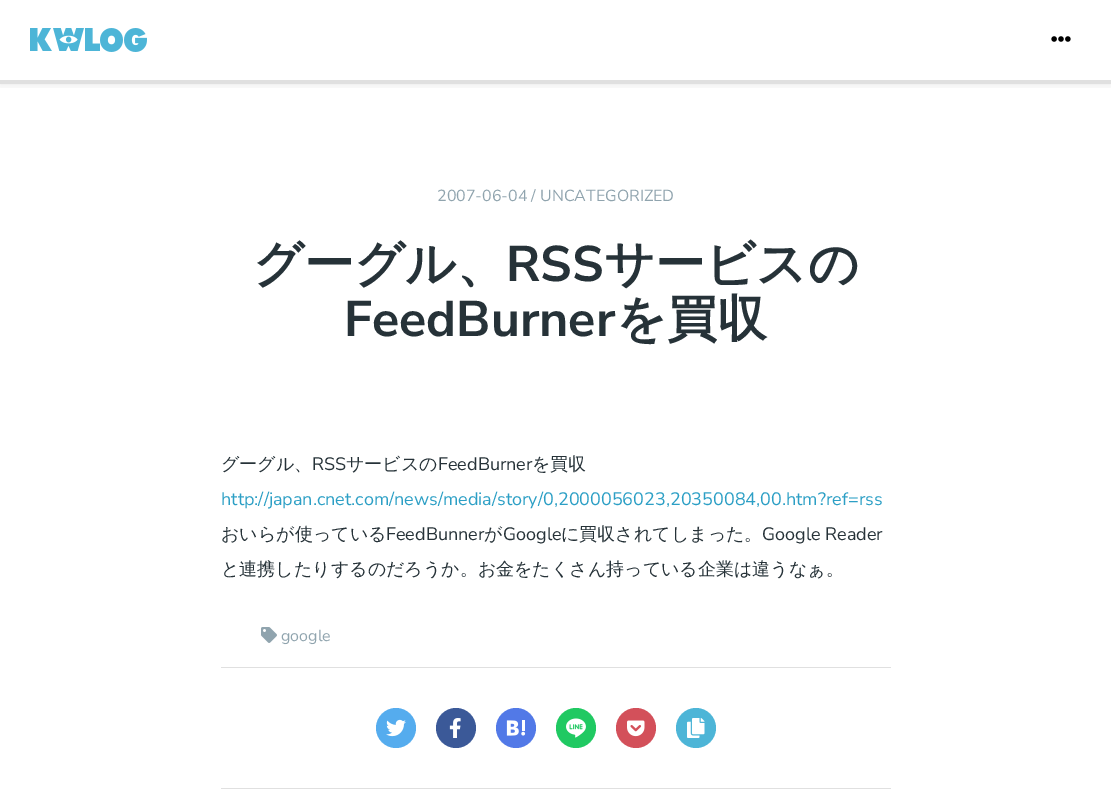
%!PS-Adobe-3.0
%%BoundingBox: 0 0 1111 808
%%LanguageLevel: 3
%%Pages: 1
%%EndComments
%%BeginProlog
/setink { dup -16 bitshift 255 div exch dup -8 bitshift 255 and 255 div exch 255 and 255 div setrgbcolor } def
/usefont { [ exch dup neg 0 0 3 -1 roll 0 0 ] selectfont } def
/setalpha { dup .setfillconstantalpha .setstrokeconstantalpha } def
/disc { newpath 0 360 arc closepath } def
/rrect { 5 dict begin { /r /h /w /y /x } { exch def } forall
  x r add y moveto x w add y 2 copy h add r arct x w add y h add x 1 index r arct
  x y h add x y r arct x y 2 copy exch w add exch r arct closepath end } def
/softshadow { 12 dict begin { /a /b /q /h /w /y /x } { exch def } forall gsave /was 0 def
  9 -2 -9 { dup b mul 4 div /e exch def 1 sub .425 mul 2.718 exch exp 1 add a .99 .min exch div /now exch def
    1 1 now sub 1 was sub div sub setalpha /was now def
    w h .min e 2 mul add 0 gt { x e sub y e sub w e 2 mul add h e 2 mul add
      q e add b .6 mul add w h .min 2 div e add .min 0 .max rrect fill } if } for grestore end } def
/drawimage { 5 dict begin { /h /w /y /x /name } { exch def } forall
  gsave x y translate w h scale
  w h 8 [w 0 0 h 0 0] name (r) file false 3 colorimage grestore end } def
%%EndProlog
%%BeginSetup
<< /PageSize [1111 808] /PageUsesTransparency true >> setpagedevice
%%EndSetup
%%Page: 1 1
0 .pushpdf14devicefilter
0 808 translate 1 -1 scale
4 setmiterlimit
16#FFFFFF setink
0 0 1111 808 rectfill
gsave
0 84 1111 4 rectclip
16#000000 setink
0 0 1111 84 0 5 0.1 softshadow
grestore
(img1.raw) 30 28 117 24 drawimage
(img2.raw) 1051 36 20 6 drawimage
16#E0E0E0 setink
0 80 1111 4 rectfill
/NunitoSans-Regular 16 usefont
16#90A4AE setink
437 201 moveto (2007-06-04 / UNCATEGORIZED) show
/WenQuanYiZenHei-Bold 50 usefont
16#263238 setink
253 281 moveto (グーグル、) show
/NunitoSans-Bold 50 usefont
506 281 moveto (RSS) show
/WenQuanYiZenHei-Bold 50 usefont
604 281 moveto (サービスの) show
/NunitoSans-Bold 50 usefont
344 336 moveto (FeedBurner) show
/WenQuanYiZenHei-Bold 50 usefont
616 336 moveto (を買収) show
/WenQuanYiZenHei-Medium 18 usefont
221 470 moveto (グーグル、) show
/NunitoSans-Regular 18 usefont
312 470 moveto (RSS) show
/WenQuanYiZenHei-Medium 18 usefont
346 470 moveto (サービスの) show
/NunitoSans-Regular 18 usefont
438 470 moveto (FeedBurner) show
/WenQuanYiZenHei-Medium 18 usefont
532 470 moveto (を買収) show
/NunitoSans-Regular 18 usefont
16#2C9FC5 setink
221 505 moveto (http://japan.cnet.com/news/media/story/0,2000056023,20350084,00.htm?ref=rss) show
/WenQuanYiZenHei-Medium 18 usefont
16#263238 setink
221 540 moveto (おいらが使っている) show
/NunitoSans-Regular 18 usefont
386 540 moveto (FeedBunner) show
/WenQuanYiZenHei-Medium 18 usefont
484 540 moveto (が) show
/NunitoSans-Regular 18 usefont
503 540 moveto (Google) show
/WenQuanYiZenHei-Medium 18 usefont
561 540 moveto (に買収されてしまった。) show
/NunitoSans-Regular 18 usefont
762 540 moveto (Google Reader) show
/WenQuanYiZenHei-Medium 18 usefont
221 575 moveto (と連携したりするのだろうか。お金をたくさん持っている企業は違うなぁ。) show
(img3.raw) 261 627 16 16 drawimage
/NunitoSans-Regular 16 usefont
16#90A4AE setink
281 641 moveto (google) show
16#E0E0E0 setink
221 667 670 1 rectfill
16#55ACEE setink
396 728 20 disc fill
(img4.raw) 386 719 20 18 drawimage
16#3B5998 setink
456 728 20 disc fill
(img5.raw) 449 718 12 20 drawimage
16#5279E7 setink
516 728 20 disc fill
(img6.raw) 506 720 20 16 drawimage
16#20C962 setink
576 728 20 disc fill
(img7.raw) 566 718 20 20 drawimage
16#D3505A setink
636 728 20 disc fill
(img8.raw) 627 720 18 17 drawimage
16#4DB5D7 setink
696 728 20 disc fill
(img9.raw) 687 718 18 20 drawimage
16#E0E0E0 setink
221 788 670 1 rectfill
.poppdf14devicefilter showpage
%%EOF
